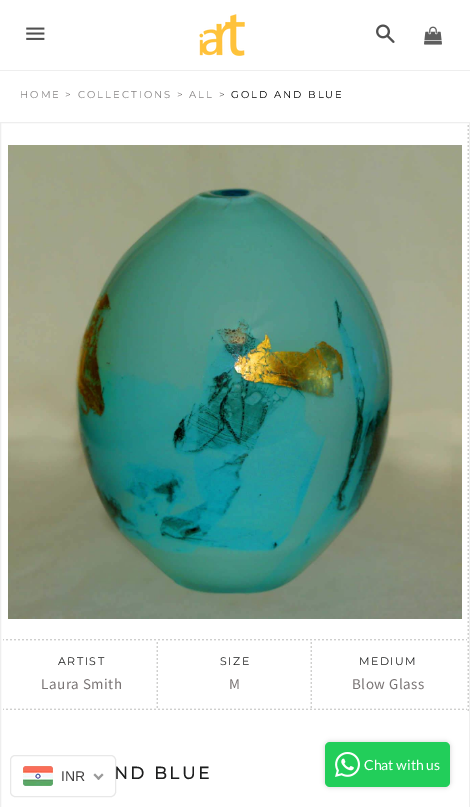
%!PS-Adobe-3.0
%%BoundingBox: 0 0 470 807
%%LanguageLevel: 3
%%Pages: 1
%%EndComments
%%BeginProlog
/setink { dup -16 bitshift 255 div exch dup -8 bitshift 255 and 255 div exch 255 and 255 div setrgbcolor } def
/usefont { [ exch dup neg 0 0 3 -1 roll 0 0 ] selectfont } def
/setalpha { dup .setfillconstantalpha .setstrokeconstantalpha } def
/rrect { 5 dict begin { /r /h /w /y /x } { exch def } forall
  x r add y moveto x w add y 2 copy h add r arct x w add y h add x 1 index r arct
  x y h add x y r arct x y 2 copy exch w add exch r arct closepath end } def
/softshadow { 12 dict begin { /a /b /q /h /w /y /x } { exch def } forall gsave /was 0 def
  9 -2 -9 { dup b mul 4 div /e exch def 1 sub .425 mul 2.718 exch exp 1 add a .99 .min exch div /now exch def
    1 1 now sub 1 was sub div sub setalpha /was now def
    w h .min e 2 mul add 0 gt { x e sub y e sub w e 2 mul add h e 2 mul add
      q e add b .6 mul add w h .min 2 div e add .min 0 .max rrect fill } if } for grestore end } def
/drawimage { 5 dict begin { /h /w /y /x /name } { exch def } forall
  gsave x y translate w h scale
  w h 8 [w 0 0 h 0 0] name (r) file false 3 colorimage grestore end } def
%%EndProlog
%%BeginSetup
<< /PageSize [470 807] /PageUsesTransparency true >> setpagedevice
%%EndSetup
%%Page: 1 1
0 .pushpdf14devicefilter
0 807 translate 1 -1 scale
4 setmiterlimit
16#FFFFFF setink
0 0 470 807 rectfill
16#EEEEEE setink
0 70 470 1 rectfill
(img1.raw) 26 27 19 13 drawimage
(img2.raw) 199 14 46 42 drawimage
(img3.raw) 376 24 19 19 drawimage
(img4.raw) 424 26 18 19 drawimage
/Montserrat-Thin 10 usefont
16#827F7F setink
20 98 moveto 2 0 (HOME > COLLECTIONS > ALL) ashow
16#6B6969 setink
219 98 moveto 2 0 (>) ashow
16#000000 setink
231 98 moveto 2 0 (GOLD AND BLUE) ashow
16#EEEEEE setink
0.5 122.5 469 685 rectstroke
(img5.raw) 467 125 2 586 drawimage
(img6.raw) 8 145 454 474 drawimage
(img7.raw) 3 639 464 71 drawimage
(img8.raw) 156 642 2 66 drawimage
/Montserrat-Thin 11 usefont
16#1C1D1D setink
58 665 moveto 1.5 0 (ARTIST) ashow
/SourceSansPro-Regular 15 usefont
16#797474 setink
41 689 moveto 0.5 0 (Laura Smith) ashow
(img8.raw) 310 642 2 66 drawimage
/Montserrat-Thin 11 usefont
16#1C1D1D setink
220 665 moveto 1.5 0 (SIZE) ashow
/SourceSansPro-Regular 15 usefont
16#797474 setink
229 689 moveto 0.5 0 (M) ashow
/Montserrat-Thin 11 usefont
16#1C1D1D setink
359 665 moveto 1.5 0 (MEDIUM) ashow
/SourceSansPro-Regular 15 usefont
16#797474 setink
352 689 moveto 0.5 0 (Blow Glass) ashow
/Montserrat-Bold 17 usefont
16#1C1D1D setink
114 779 moveto 2.5 0 (ND BLUE) ashow
16#D3D3D3 setink
325 742 125 45 5 2.5 1 softshadow
16#22CE5A setink
325 742 125 45 5 rrect fill
(img9.raw) 335 752 25 25 drawimage
/Lato-Regular 14 usefont
16#FFFFFF setink
364 770 moveto (Chat with us) show
16#E8E8E8 setink
10.5 755.5 105 41 4.5 rrect stroke
(img10.raw) 23 766 30 20 drawimage
/LiberationSans-Regular 14 usefont
16#403F3F setink
61 781 moveto (INR) show
16#999999 setink
102 773.5 moveto 103.5 775 lineto 98.5 780 lineto 97 778.5 lineto closepath fill
95 773.5 moveto 100 778.5 lineto 98.5 780 lineto 93.5 775 lineto closepath fill
.poppdf14devicefilter showpage
%%EOF
